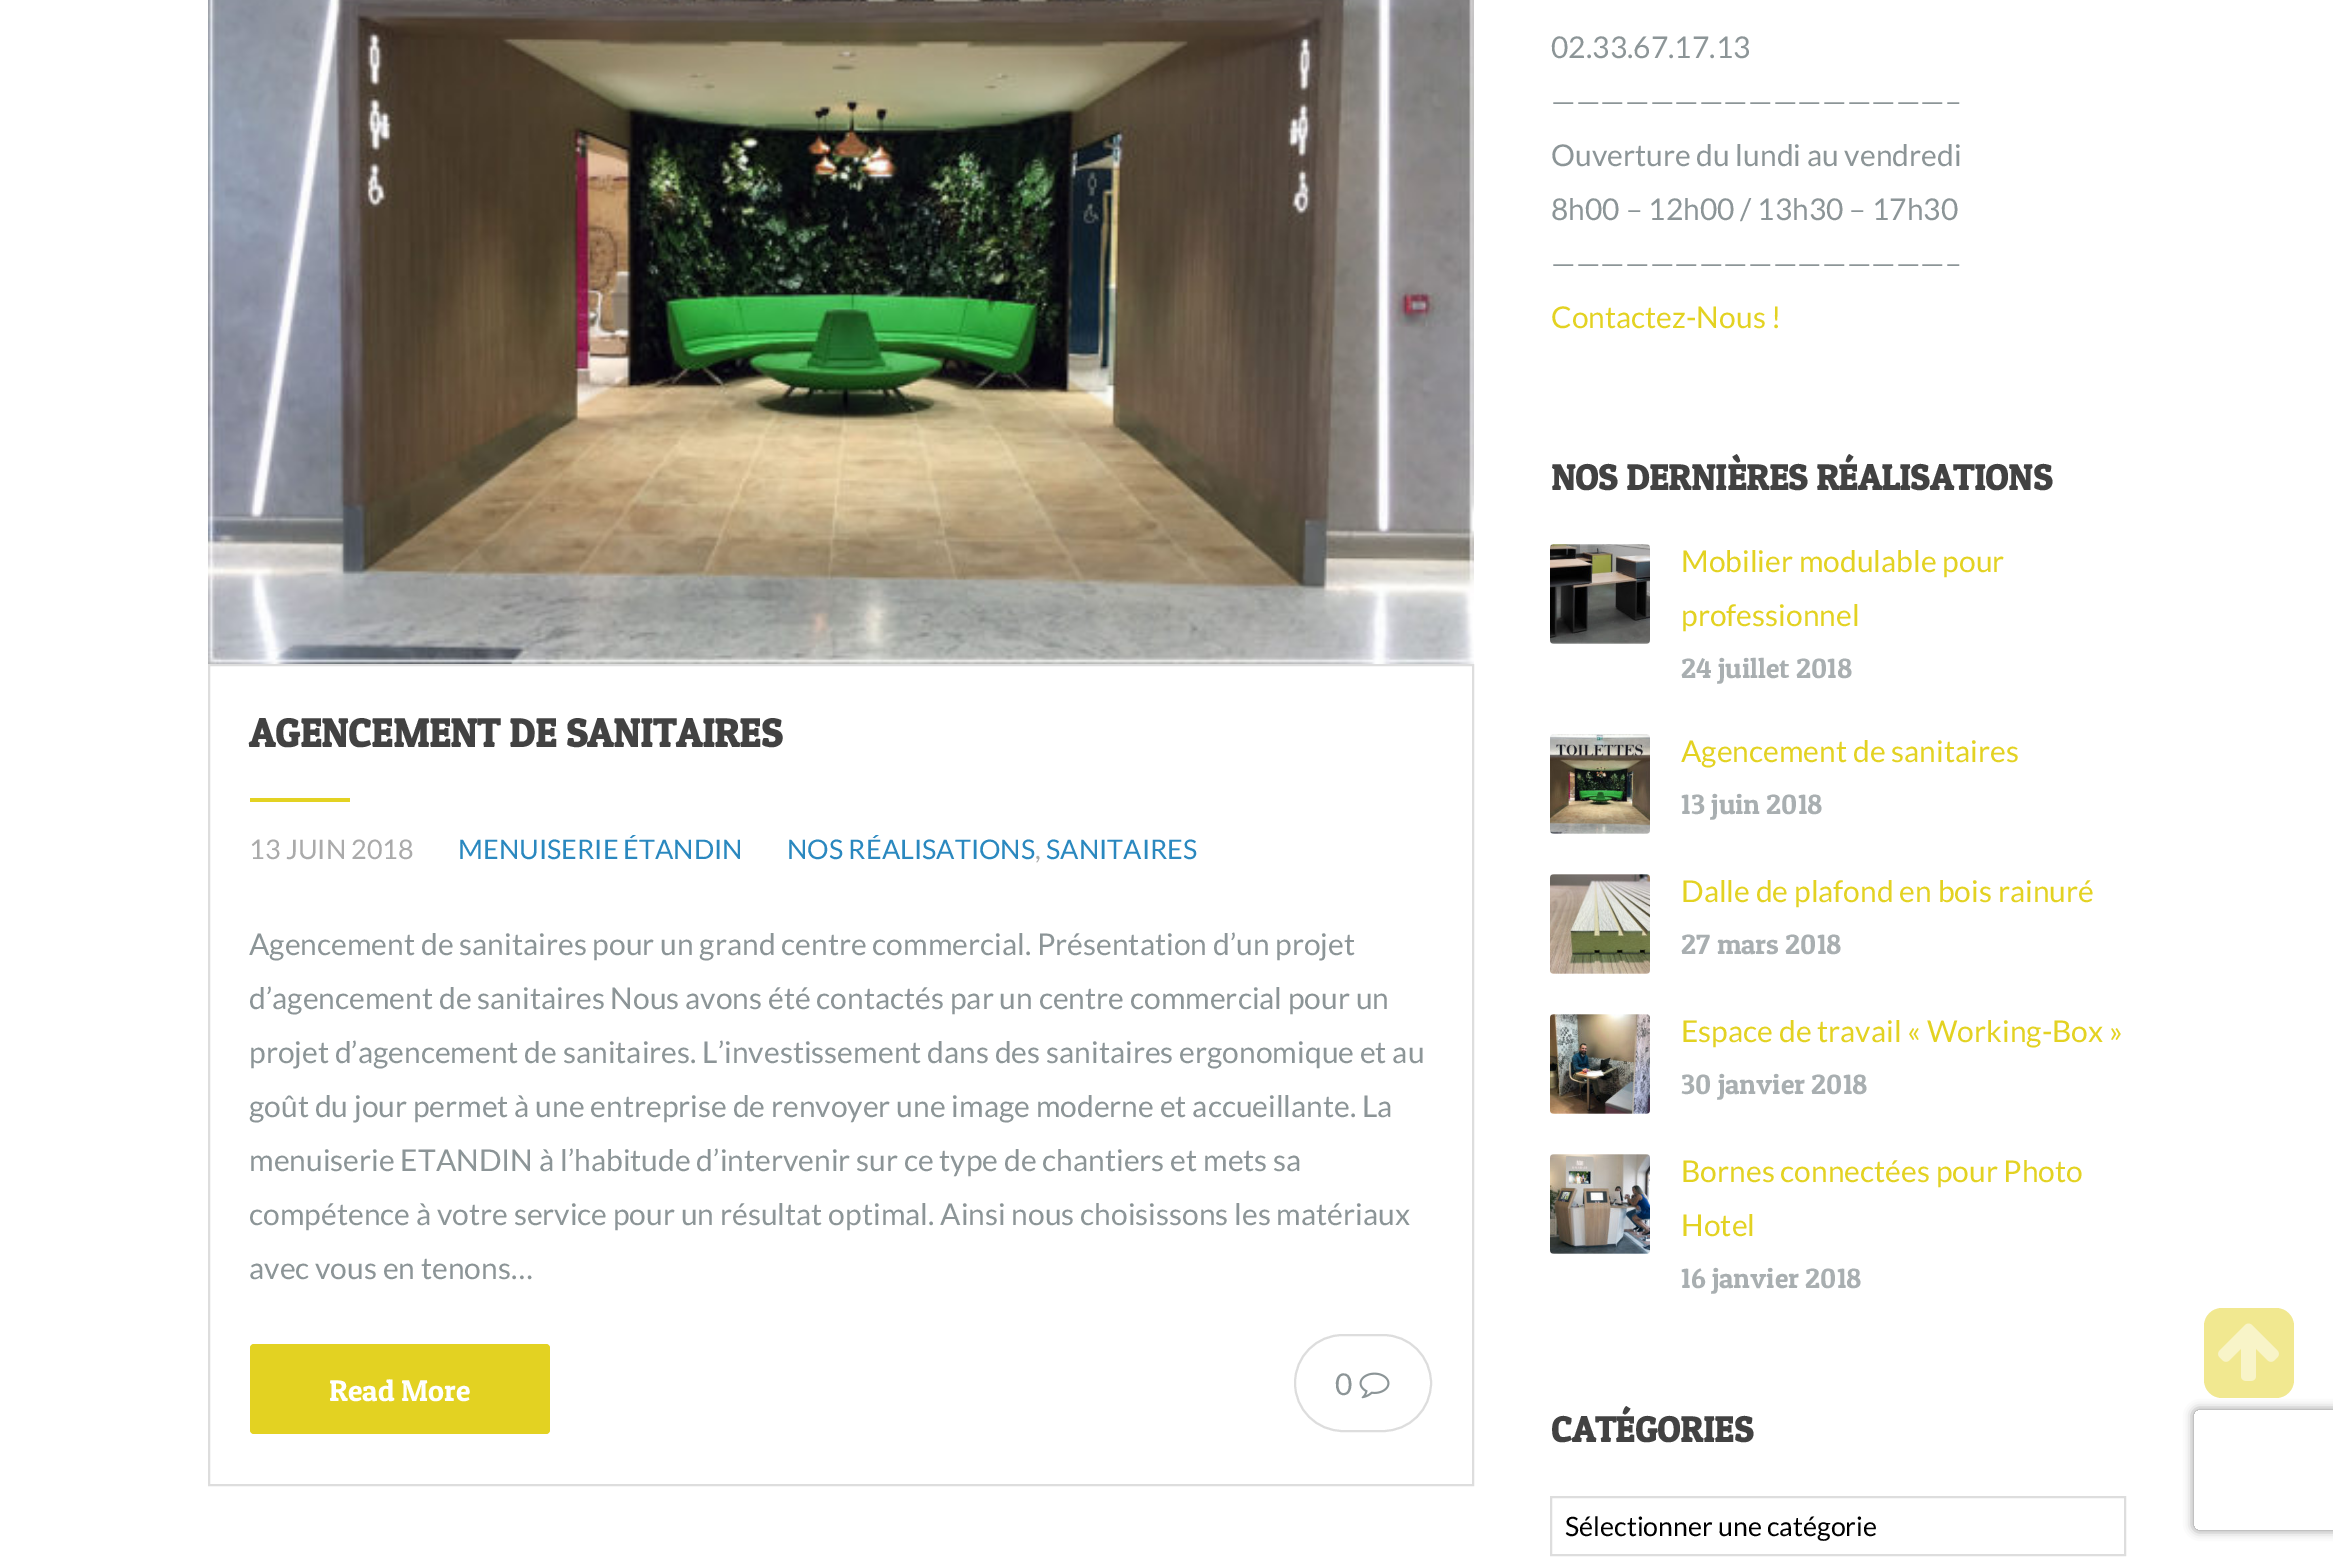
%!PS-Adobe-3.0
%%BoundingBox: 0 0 2333 1558
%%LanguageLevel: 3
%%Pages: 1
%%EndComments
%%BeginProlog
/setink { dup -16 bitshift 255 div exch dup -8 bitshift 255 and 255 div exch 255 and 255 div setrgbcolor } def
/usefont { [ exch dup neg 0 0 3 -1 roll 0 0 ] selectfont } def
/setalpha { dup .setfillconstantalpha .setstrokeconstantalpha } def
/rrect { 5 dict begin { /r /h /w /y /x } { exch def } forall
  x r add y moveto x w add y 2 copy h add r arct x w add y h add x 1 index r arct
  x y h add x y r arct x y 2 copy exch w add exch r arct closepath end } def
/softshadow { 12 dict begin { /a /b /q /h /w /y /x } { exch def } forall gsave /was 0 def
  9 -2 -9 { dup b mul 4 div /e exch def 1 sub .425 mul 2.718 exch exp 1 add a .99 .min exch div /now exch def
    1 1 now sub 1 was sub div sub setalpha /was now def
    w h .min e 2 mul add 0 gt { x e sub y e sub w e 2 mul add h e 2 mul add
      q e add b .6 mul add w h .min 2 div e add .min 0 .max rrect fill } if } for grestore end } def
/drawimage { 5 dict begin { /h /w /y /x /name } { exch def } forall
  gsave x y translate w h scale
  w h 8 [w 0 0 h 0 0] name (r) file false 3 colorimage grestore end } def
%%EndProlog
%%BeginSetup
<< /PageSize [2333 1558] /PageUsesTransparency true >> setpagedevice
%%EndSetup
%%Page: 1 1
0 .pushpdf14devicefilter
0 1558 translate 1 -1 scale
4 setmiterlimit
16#FFFFFF setink
0 0 2333 1558 rectfill
(img1.raw) 208 0 1266 664 drawimage
16#DDDDDD setink
2 setlinewidth
209 665 1264 820 rectstroke
/PatuaOne-Bold 40 usefont
16#424242 setink
249 747 moveto (AGENCEMENT DE SANITAIRES) show
16#E3D222 setink
250 798 100 4 rectfill
/Lato-Regular 27 usefont
16#AAAAAA setink
249 859 moveto (13 JUIN 2018) show
16#2A88BF setink
458 859 moveto (MENUISERIE ÉTANDIN) show
787 859 moveto (NOS RÉALISATIONS) show
16#AAAAAA setink
1035 859 moveto (,) show
16#2A88BF setink
1046 859 moveto (SANITAIRES) show
/Lato-Regular 30 usefont
16#8C9597 setink
[
    [(Agencement de sanitaires pour un grand centre commercial. Présentation d’un projet) 249 955]
    [(d’agencement de sanitaires Nous avons été contactés par un centre commercial pour un) 249 1009]
    [(projet d’agencement de sanitaires. L’investissement dans des sanitaires ergonomique et au) 249 1063]
    [(goût du jour permet à une entreprise de renvoyer une image moderne et accueillante. La) 249 1117]
    [(menuiserie ETANDIN à l’habitude d’intervenir sur ce type de chantiers et mets sa) 249 1171]
    [(compétence à votre service pour un résultat optimal. Ainsi nous choisissons les matériaux) 249 1225]
    [(avec vous en tenons…) 249 1279]
] { aload pop moveto show } forall
16#E3D222 setink
250 1344 300 90 4 rrect fill
/PatuaOne-Regular 30 usefont
16#FFFFFF setink
329 1401 moveto (Read More) show
16#DDDDDD setink
1295 1335 136 96 48 rrect stroke
/Lato-Regular 30 usefont
16#8C9597 setink
1335 1395 moveto (0) show
(img2.raw) 1359 1372 31 27 drawimage
[
    [(02.33.67.17.13) 1551 58]
    [(————————————————–) 1551 112]
    [(Ouverture du lundi au vendredi) 1551 166]
    [(8h00 – 12h00 / 13h30 – 17h30) 1551 220]
    [(————————————————–) 1551 274]
] { aload pop moveto show } forall
16#E3D222 setink
1551 328 moveto (Contactez-Nous !) show
/PatuaOne-Bold 36 usefont
16#424242 setink
1551 490 moveto (NOS DERNIÈRES RÉALISATIONS) show
(img3.raw) 1550 544 100 100 drawimage
/Lato-Regular 30 usefont
16#E3D222 setink
1681 572 moveto (Mobilier modulable pour) show
1681 626 moveto (professionnel) show
/PatuaOne-Regular 28 usefont
16#A9AFB1 setink
1681 678 moveto (24 juillet 2018) show
(img4.raw) 1550 734 100 100 drawimage
/Lato-Regular 30 usefont
16#E3D222 setink
1681 762 moveto (Agencement de sanitaires) show
/PatuaOne-Regular 28 usefont
16#A9AFB1 setink
1681 814 moveto (13 juin 2018) show
(img5.raw) 1550 874 100 100 drawimage
/Lato-Regular 30 usefont
16#E3D222 setink
1681 902 moveto (Dalle de plafond en bois rainuré) show
/PatuaOne-Regular 28 usefont
16#A9AFB1 setink
1681 954 moveto (27 mars 2018) show
(img6.raw) 1550 1014 100 100 drawimage
/Lato-Regular 30 usefont
16#E3D222 setink
1681 1042 moveto (Espace de travail « Working-Box ») show
/PatuaOne-Regular 28 usefont
16#A9AFB1 setink
1681 1094 moveto (30 janvier 2018) show
(img7.raw) 1550 1154 100 100 drawimage
/Lato-Regular 30 usefont
16#E3D222 setink
1681 1182 moveto (Bornes connectées pour Photo) show
1681 1236 moveto (Hotel) show
/PatuaOne-Regular 28 usefont
16#A9AFB1 setink
1681 1288 moveto (16 janvier 2018) show
/PatuaOne-Bold 36 usefont
16#424242 setink
1551 1442 moveto (CATÉGORIES) show
16#DDDDDD setink
1551 1497 574 58 rectstroke
/Lato-Regular 26.75 usefont
16#000000 setink
1565 1536 moveto (Sélectionner une catégorie) show
gsave
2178 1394 moveto 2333 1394 lineto 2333 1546 lineto 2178 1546 lineto closepath 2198 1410 moveto 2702 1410 lineto 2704 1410 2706 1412 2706 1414 curveto 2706 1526 lineto 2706 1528 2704 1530 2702 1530 curveto 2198 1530 lineto 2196 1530 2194 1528 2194 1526 curveto 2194 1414 lineto 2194 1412 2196 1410 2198 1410 curveto closepath eoclip newpath
16#808080 setink
2194 1410 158 120 4 5 1 softshadow
grestore
16#F1E890 setink
2204 1308 90 90 18 rrect fill
(img8.raw) 2218 1323 61 58 drawimage
.poppdf14devicefilter showpage
%%EOF
